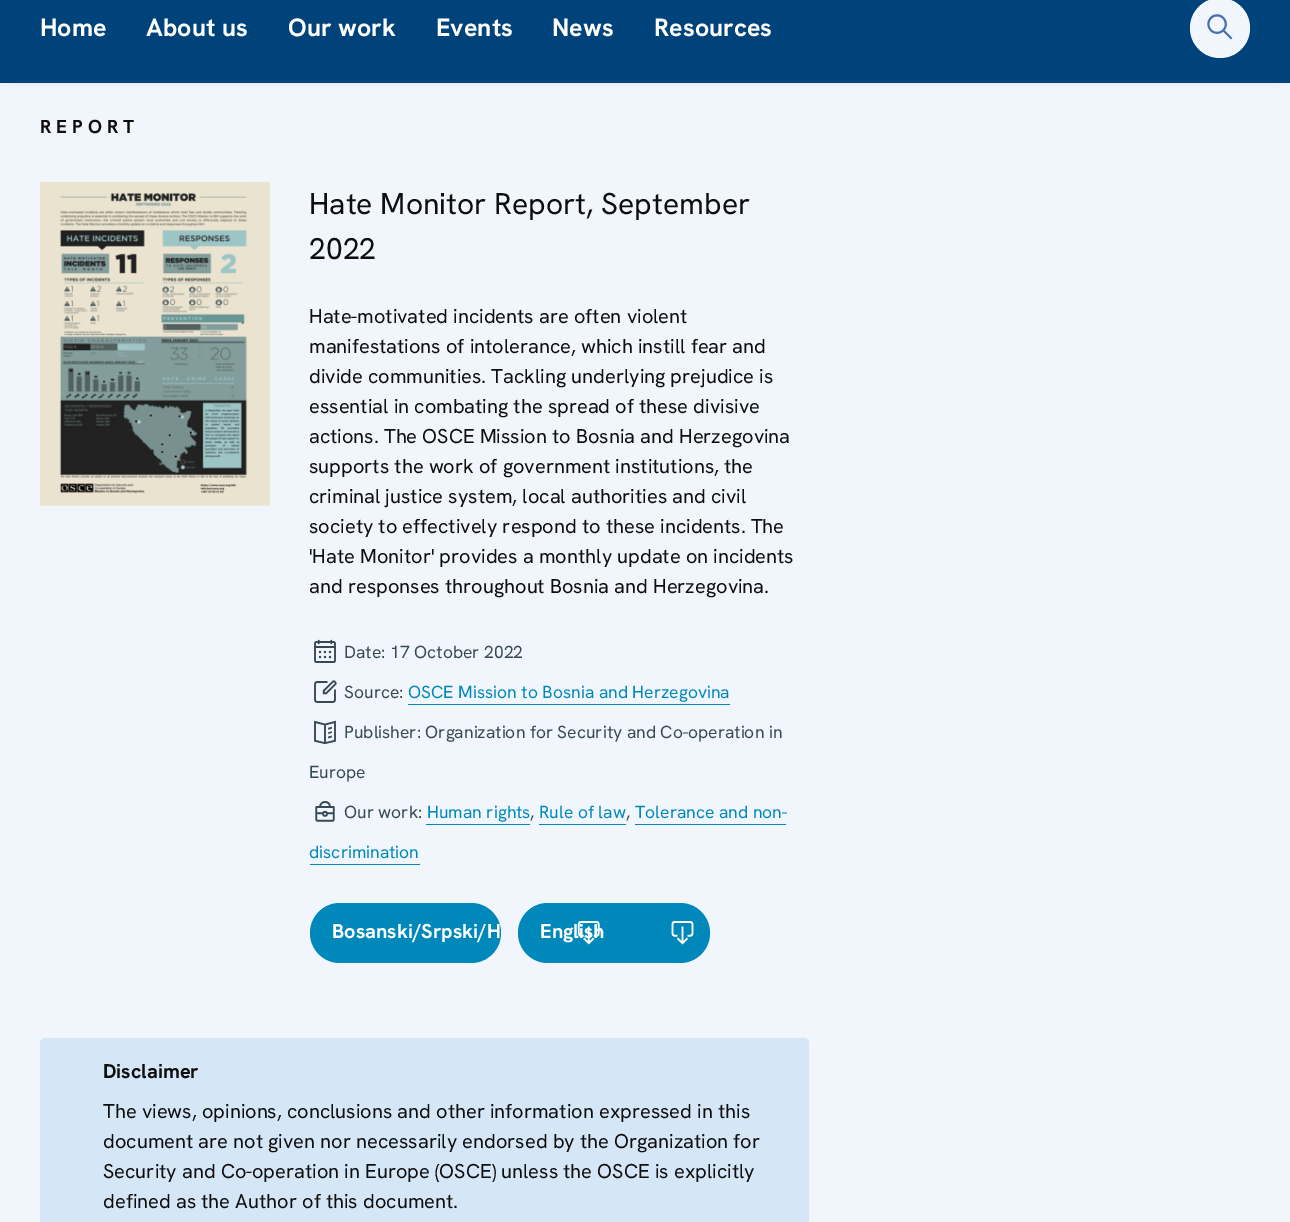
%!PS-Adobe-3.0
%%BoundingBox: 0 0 1290 1222
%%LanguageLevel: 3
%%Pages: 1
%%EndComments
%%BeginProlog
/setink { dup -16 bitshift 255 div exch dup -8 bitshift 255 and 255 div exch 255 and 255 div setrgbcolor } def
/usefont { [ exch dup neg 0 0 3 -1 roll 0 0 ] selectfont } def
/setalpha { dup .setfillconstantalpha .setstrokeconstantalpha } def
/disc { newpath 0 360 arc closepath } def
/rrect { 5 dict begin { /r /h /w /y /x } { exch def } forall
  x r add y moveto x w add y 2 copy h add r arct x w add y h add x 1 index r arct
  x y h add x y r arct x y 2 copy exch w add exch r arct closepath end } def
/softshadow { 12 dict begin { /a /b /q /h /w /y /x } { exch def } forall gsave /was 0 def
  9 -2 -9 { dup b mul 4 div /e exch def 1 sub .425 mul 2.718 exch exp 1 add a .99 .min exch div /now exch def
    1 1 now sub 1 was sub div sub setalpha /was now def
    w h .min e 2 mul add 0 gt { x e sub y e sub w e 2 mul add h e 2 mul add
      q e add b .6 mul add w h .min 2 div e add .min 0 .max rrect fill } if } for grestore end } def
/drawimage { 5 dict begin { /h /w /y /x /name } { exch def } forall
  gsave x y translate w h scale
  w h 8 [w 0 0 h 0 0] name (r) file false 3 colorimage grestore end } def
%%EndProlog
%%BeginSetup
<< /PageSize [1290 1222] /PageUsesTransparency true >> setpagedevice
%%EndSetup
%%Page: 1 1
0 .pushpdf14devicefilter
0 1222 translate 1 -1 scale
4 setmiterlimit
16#F0F6FB setink
0 0 1290 1222 rectfill
16#000000 setink
0 -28 1290 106 13 5 0.2 softshadow
16#00437B setink
0 0 1290 83 rectfill
/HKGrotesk-Bold 25 usefont
16#FFFFFF setink
[
    [(Home) 40 36]
    [(About us) 146 36]
    [(Our work) 288 36]
    [(Events) 436 36]
    [(News) 552 36]
    [(Resources) 654 36]
] { aload pop moveto show } forall
16#F0F6FB setink
1220 28 30 disc fill
(img1.raw) 1207 14 26 26 drawimage
/HKGrotesk-Bold 18.75 usefont
16#0E0E0F setink
40 133 moveto 5 0 (REPORT) ashow
(img2.raw) 40 182 230 324 drawimage
/HKGrotesk-Regular 30 usefont
309 214 moveto (Hate Monitor Report, September) show
309 259 moveto (2022) show
/HKGrotesk-Regular 20 usefont
[
    [(Hate-motivated incidents are often violent) 309 323]
    [(manifestations of intolerance, which instill fear and) 309 353]
    [(divide communities. Tackling underlying prejudice is) 309 383]
    [(essential in combating the spread of these divisive) 309 413]
    [(actions. The OSCE Mission to Bosnia and Herzegovina) 309 443]
    [(supports the work of government institutions, the) 309 473]
    [(criminal justice system, local authorities and civil) 309 503]
    [(society to effectively respond to these incidents. The) 309 533]
    [('Hate Monitor' provides a monthly update on incidents) 309 563]
    [(and responses throughout Bosnia and Herzegovina.) 309 593]
] { aload pop moveto show } forall
(img3.raw) 314 639 22 24 drawimage
/HKGrotesk-Regular 17.5 usefont
16#374954 setink
344 658 moveto (Date: 17 October 2022) show
(img4.raw) 314 680 23 23 drawimage
344 698 moveto (Source:) show
16#0088BB setink
408 698 moveto (OSCE Mission to Bosnia and Herzegovina) show
408 704 322 1 rectfill
(img5.raw) 314 720 22 25 drawimage
16#374954 setink
344 738 moveto (Publisher: Organization for Security and Co-operation in) show
309 778 moveto (Europe) show
(img6.raw) 315 801 20 21 drawimage
344 818 moveto (Our work:) show
16#0088BB setink
427 818 moveto (Human rights) show
16#374954 setink
530 818 moveto (,) show
16#0088BB setink
426 824 104 1 rectfill
539 818 moveto (Rule of law) show
16#374954 setink
626 818 moveto (,) show
16#0088BB setink
539 824 87 1 rectfill
635 824 151 1 rectfill
635 818 moveto (Tolerance and non-) show
309 858 moveto (discrimination) show
310 864 110 1 rectfill
310 903 191 60 30 rrect fill
/HKGrotesk-Bold 20 usefont
16#FFFFFF setink
332 938 moveto (Bosanski/Srpski/H) show
16#0088BB setink
518 903 192 60 30 rrect fill
16#FFFFFF setink
540 938 moveto (English) show
(img7.raw) 577 921 23 24 drawimage
(img8.raw) 671 921 23 24 drawimage
16#D5E7F7 setink
40 1038 769 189 5 rrect fill
16#0E0E0F setink
103 1078 moveto (Disclaimer) show
/HKGrotesk-Regular 20 usefont
[
    [(The views, opinions, conclusions and other information expressed in this) 103 1118]
    [(document are not given nor necessarily endorsed by the Organization for) 103 1148]
    [(Security and Co-operation in Europe \(OSCE\) unless the OSCE is explicitly) 103 1178]
    [(defined as the Author of this document.) 103 1208]
] { aload pop moveto show } forall
.poppdf14devicefilter showpage
%%EOF
